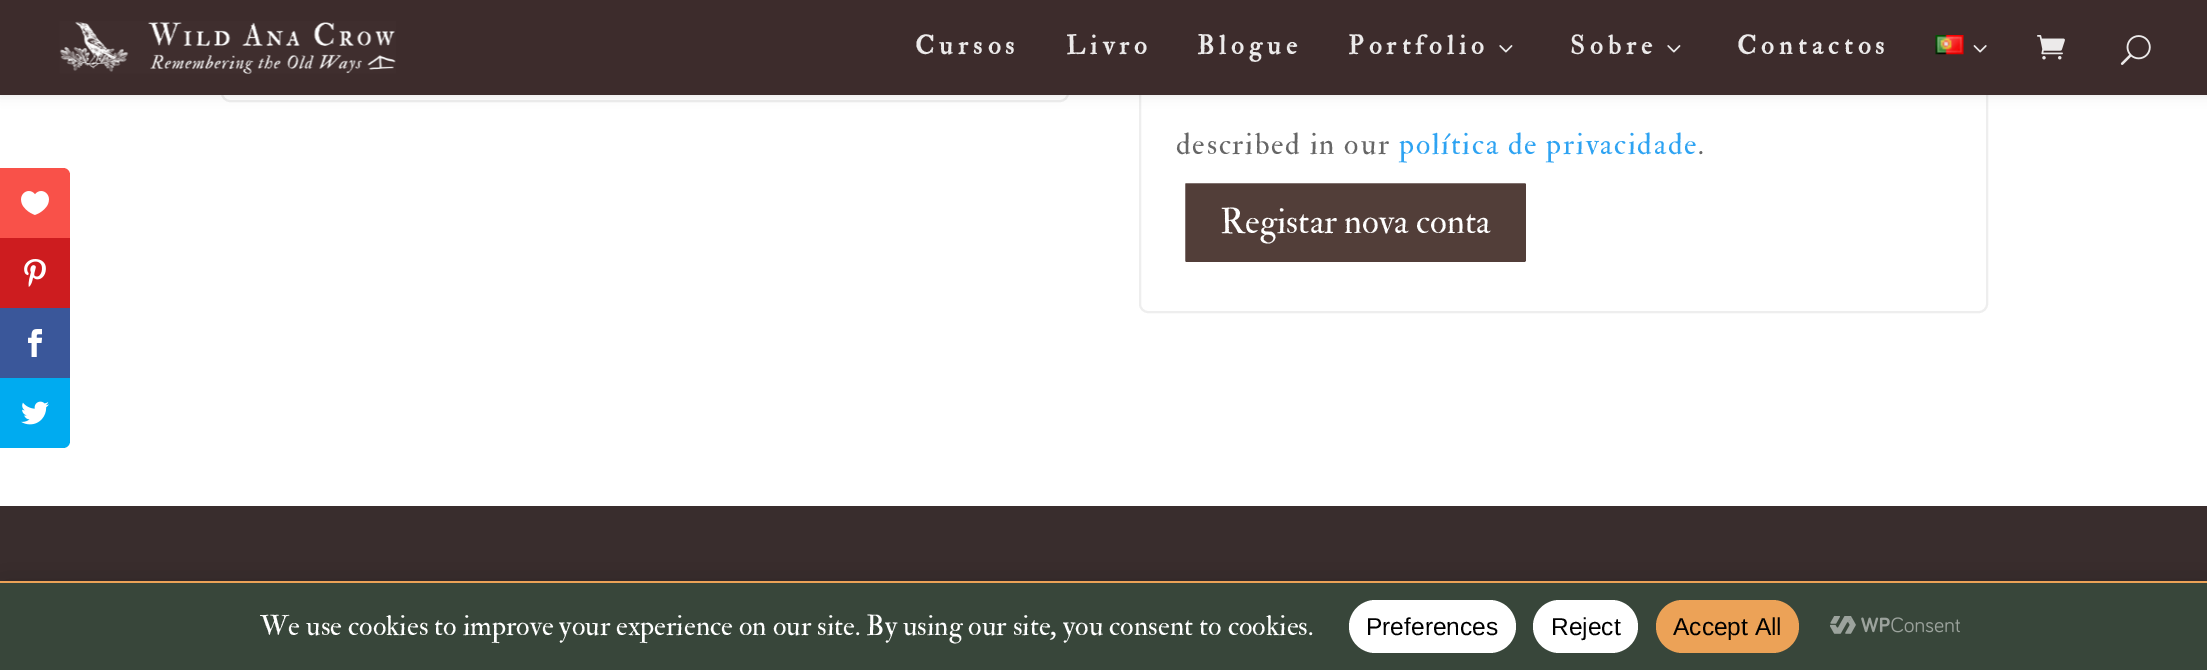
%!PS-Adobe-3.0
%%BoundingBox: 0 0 2207 670
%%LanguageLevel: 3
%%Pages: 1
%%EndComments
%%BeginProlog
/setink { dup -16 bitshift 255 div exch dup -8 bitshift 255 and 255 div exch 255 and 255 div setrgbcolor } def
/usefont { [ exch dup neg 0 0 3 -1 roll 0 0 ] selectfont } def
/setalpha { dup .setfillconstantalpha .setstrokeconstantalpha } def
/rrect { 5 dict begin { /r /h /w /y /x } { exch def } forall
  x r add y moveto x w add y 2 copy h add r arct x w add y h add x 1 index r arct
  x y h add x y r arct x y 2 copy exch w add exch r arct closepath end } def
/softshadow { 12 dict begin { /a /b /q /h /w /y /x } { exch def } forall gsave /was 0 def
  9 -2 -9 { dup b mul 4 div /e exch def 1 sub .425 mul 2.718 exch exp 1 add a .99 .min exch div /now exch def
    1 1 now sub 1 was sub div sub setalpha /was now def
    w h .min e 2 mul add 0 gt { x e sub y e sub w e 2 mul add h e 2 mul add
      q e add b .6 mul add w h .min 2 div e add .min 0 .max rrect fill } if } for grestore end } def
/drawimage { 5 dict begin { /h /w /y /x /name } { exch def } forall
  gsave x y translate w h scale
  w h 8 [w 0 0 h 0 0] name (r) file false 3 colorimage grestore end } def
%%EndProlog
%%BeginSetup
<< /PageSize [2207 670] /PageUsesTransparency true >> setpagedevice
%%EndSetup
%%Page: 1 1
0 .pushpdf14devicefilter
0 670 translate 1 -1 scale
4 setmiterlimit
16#FFFFFF setink
0 0 2207 670 rectfill
16#EEEEEE setink
2 setlinewidth
222 -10 846 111 8 rrect stroke
1140 -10 847 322 8 rrect stroke
16#000000 setink
0 0 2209 95 0 6 0.1 softshadow
16#3D2C2C setink
0 0 2207 95 rectfill
(img1.raw) 59 21 337 53 drawimage
/IMFELLDoublePica-Bold 26.25 usefont
16#ECEAEA setink
915 54 moveto 5.25 0 (Cursos) ashow
1066 54 moveto 5.25 0 (Livro) ashow
1197 54 moveto 5.25 0 (Blogue) ashow
1348 54 moveto 5.25 0 (Portfolio) ashow
(img2.raw) 1499 45 14 8 drawimage
1570 54 moveto 5.25 0 (Sobre) ashow
(img2.raw) 1667 45 14 8 drawimage
1737 54 moveto 5.25 0 (Contactos) ashow
(img3.raw) 1935 35 29 20 drawimage
(img4.raw) 1973 45 14 8 drawimage
(img5.raw) 2037 35 28 25 drawimage
(img6.raw) 2120 35 31 30 drawimage
/IMFELLDoublePica-Regular 29.75 usefont
16#666666 setink
1176 154 moveto 1.75 0 (described in our) ashow
16#2EA3F2 setink
1399 154 moveto 1.75 0 (política de privacidade) ashow
16#666666 setink
1698 154 moveto 1.75 0 (.) ashow
16#523E39 setink
1183 181 345 83 3 rrect gsave fill grestore
16#FFFFFF setink
4 setlinewidth
stroke
/IMFELLDoublePica-Regular 35 usefont
1220 233 moveto (Registar nova conta) show
16#392D2D setink
0 506 2207 75 rectfill
16#F95149 setink
0 168 moveto 63 168 lineto 67 168 70 171 70 175 curveto 70 238 lineto 0 238 lineto closepath fill
(img7.raw) 21 191 28 24 drawimage
16#CD1C1F setink
0 238 70 70 rectfill
(img8.raw) 24 259 22 28 drawimage
16#3A579A setink
0 308 70 70 rectfill
(img9.raw) 28 329 14 28 drawimage
16#00ABF0 setink
0 378 moveto 70 378 lineto 70 441 lineto 70 445 67 448 63 448 curveto 0 448 lineto closepath fill
(img10.raw) 21 401 28 24 drawimage
16#000000 setink
0 583 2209 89 0 16.5 0.2 softshadow
16#ECA257 setink
0 581 2207 2 rectfill
16#38463A setink
0 583 2207 87 rectfill
/IMFELLDoublePica-Regular 28 usefont
16#FFFFFF setink
260 635 moveto (We use cookies to improve your experience on our site. By using our site, you consent to cookies.) show
1349 600 167 53 26.5 rrect fill
/LiberationSans-Regular 24.5 usefont
16#000000 setink
1366 635 moveto (Preferences) show
16#FFFFFF setink
1533 600 105 53 26.5 rrect fill
16#000000 setink
1551 635 moveto (Reject) show
16#ECA257 setink
1656 600 143 53 26.5 rrect fill
16#000000 setink
1673 635 moveto (Accept All) show
(img11.raw) 1830 616 130 18 drawimage
.poppdf14devicefilter showpage
%%EOF
